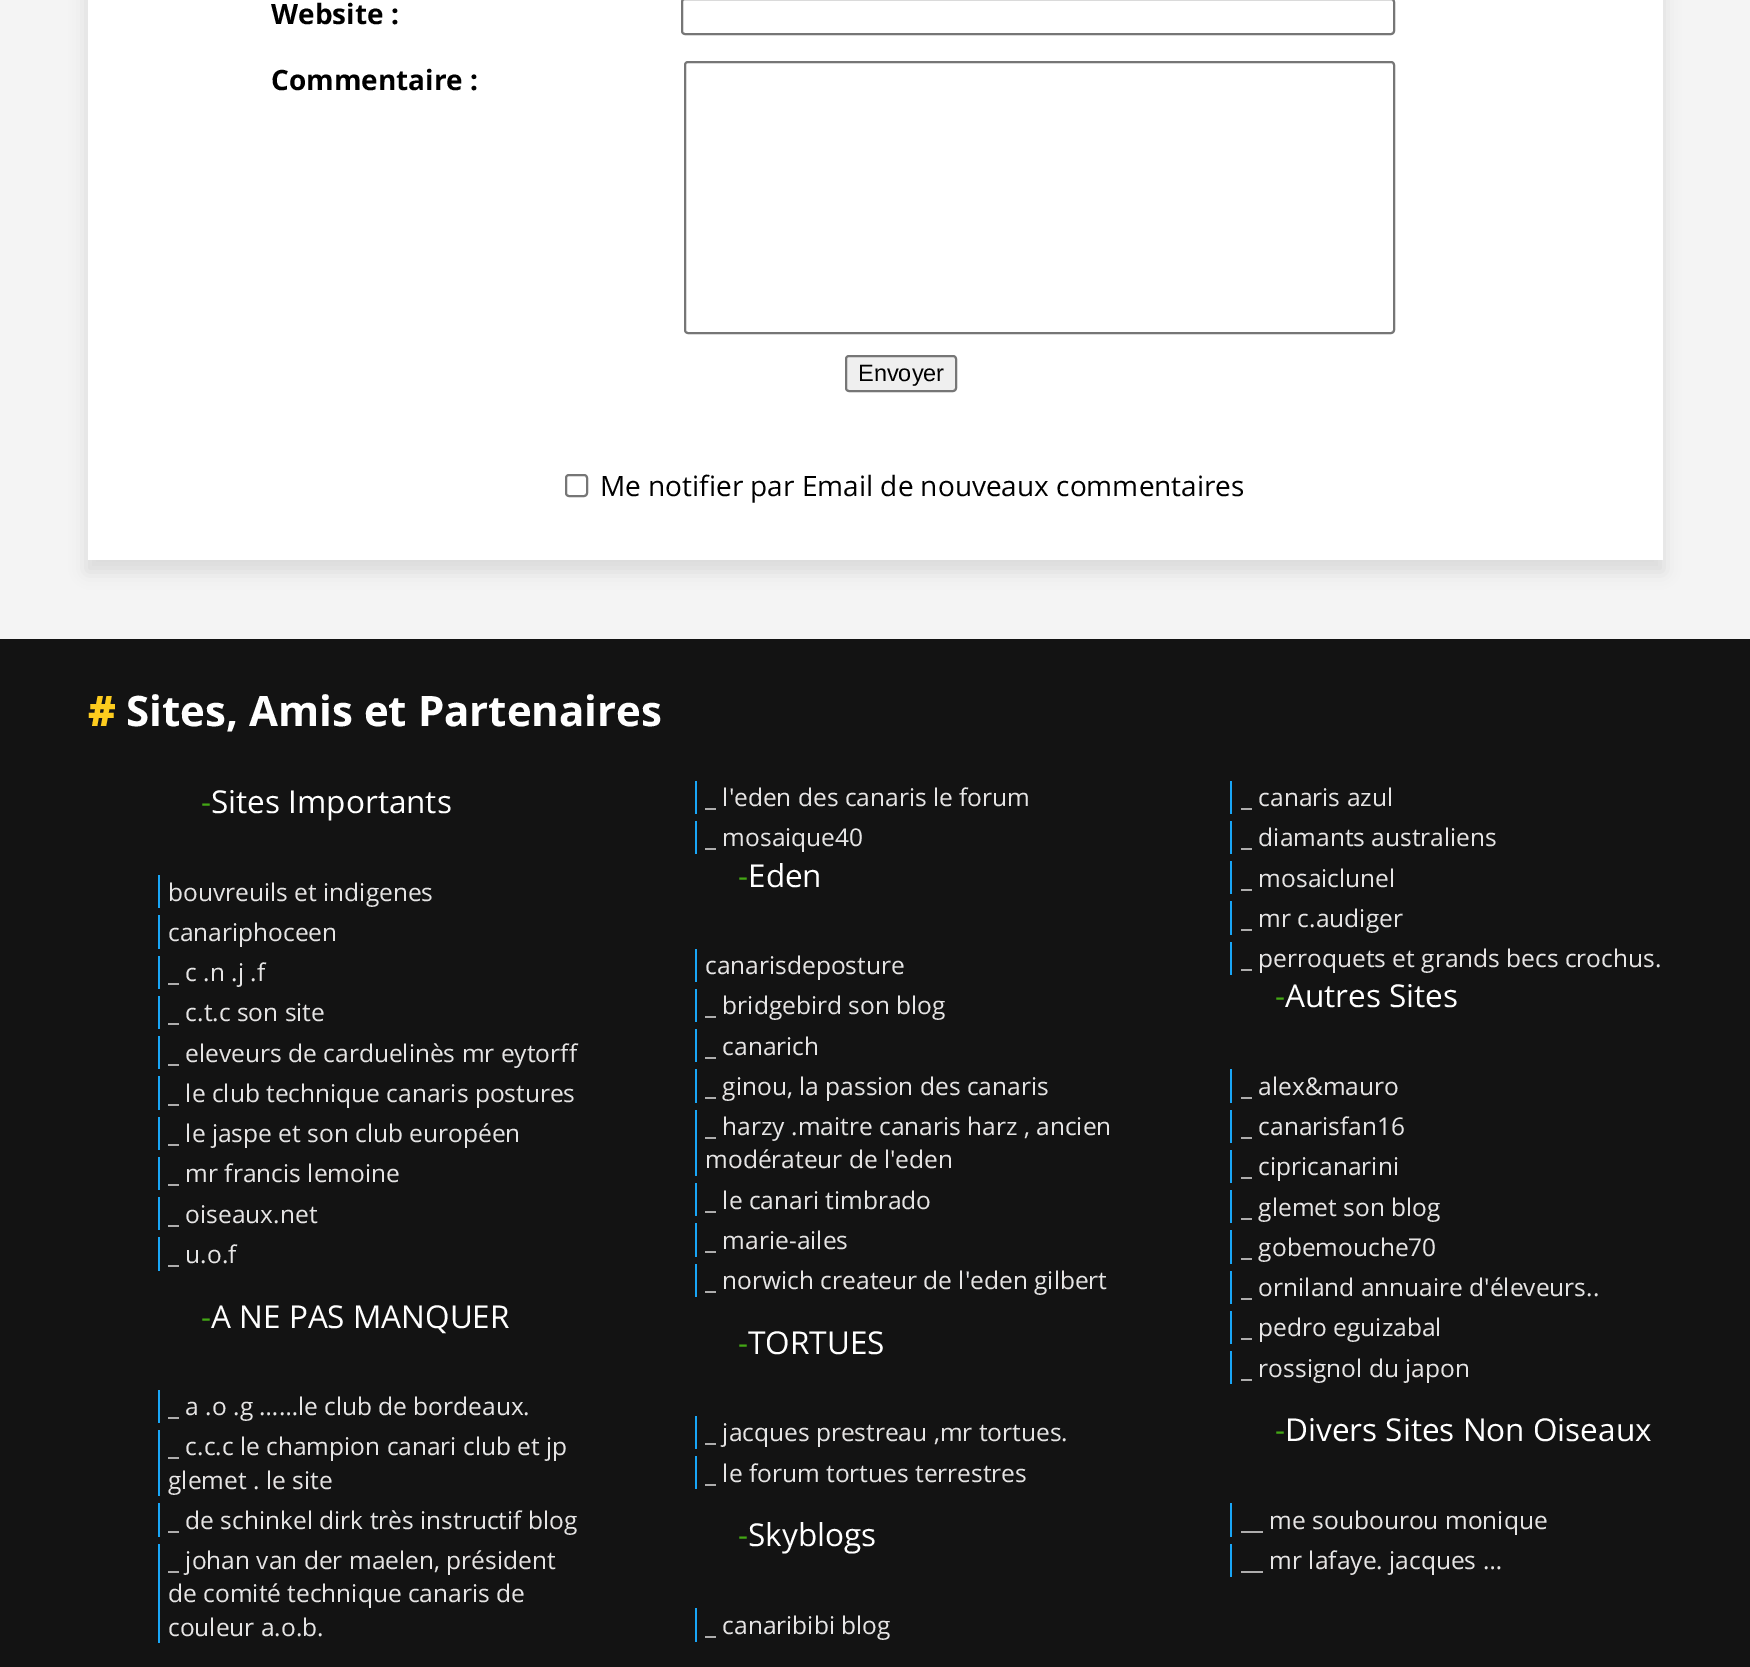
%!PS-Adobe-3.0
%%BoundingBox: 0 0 1750 1667
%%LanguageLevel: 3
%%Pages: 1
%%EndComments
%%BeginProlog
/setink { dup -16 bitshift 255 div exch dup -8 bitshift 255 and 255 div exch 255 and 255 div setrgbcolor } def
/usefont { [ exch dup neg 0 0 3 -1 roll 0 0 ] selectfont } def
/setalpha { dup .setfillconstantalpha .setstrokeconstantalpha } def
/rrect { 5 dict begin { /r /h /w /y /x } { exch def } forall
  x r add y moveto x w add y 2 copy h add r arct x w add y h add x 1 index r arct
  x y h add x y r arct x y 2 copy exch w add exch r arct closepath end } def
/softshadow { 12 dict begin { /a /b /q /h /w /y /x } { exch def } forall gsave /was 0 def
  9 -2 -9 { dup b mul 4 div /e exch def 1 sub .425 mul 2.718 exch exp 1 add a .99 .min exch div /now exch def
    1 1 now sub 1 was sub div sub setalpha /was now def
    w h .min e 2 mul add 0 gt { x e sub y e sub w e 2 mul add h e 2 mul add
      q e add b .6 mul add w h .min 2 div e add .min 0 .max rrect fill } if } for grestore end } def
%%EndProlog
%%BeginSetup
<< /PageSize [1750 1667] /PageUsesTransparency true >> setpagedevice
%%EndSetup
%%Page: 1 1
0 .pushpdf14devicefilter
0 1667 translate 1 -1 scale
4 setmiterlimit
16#F4F4F4 setink
0 0 1750 1667 rectfill
16#DBDBDB setink
86 -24 1578 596 0 8 1 softshadow
16#FFFFFF setink
88 0 1575 560 rectfill
/OpenSans-Bold 28 usefont
16#000000 setink
271 24 moveto (Website :) show
16#767676 setink
2 setlinewidth
682 -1 712 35 3 rrect stroke
16#000000 setink
271 90 moveto (Commentaire :) show
16#767676 setink
685 62 709 271 3 rrect stroke
16#EFEFEF setink
846 356 110 35 3 rrect gsave fill grestore
16#767676 setink
stroke
/LiberationSans-Regular 23.5 usefont
16#000000 setink
858 381 moveto (Envoyer) show
16#767676 setink
566 475 21 21 3 rrect stroke
/OpenSans-Regular 28 usefont
16#000000 setink
600 496 moveto (Me notifier par Email de nouveaux commentaires) show
16#131313 setink
0 639 1750 1028 rectfill
/OpenSans-ExtraBold 42 usefont
16#FDCC1E setink
88 726 moveto (#) show
/OpenSans-Bold 42 usefont
16#FFFFFF setink
126 726 moveto (Sites, Amis et Partenaires) show
16#19A6F7 setink
695 781 2 33 rectfill
/OpenSans-Regular 24.5 usefont
16#E6E5E5 setink
705 806 moveto (_ l'eden des canaris le forum) show
16#19A6F7 setink
695 821 2 33 rectfill
16#E6E5E5 setink
705 846 moveto (_ mosaique40) show
16#19A6F7 setink
158 1390 2 33 rectfill
16#E6E5E5 setink
168 1415 moveto (_ a .o .g ……le club de bordeaux.) show
16#19A6F7 setink
158 1430 2 66 rectfill
16#E6E5E5 setink
168 1455 moveto (_ c.c.c le champion canari club et jp) show
168 1489 moveto (glemet . le site) show
16#19A6F7 setink
158 1503 2 34 rectfill
16#E6E5E5 setink
168 1529 moveto (_ de schinkel dirk très instructif blog) show
16#19A6F7 setink
158 1544 2 99 rectfill
16#E6E5E5 setink
[
    [(_ johan van der maelen, président) 168 1569]
    [(de comité technique canaris de) 168 1602]
    [(couleur a.o.b.) 168 1636]
] { aload pop moveto show } forall
/OpenSans-Regular 31.5 usefont
16#43A714 setink
201 1328 moveto (-) show
16#FFFFFF setink
211 1328 moveto (A NE PAS MANQUER) show
16#19A6F7 setink
1230 781 2 33 rectfill
/OpenSans-Regular 24.5 usefont
16#E6E5E5 setink
1241 806 moveto (_ canaris azul) show
16#19A6F7 setink
1230 821 2 33 rectfill
16#E6E5E5 setink
1241 846 moveto (_ diamants australiens) show
16#19A6F7 setink
1230 861 2 33 rectfill
16#E6E5E5 setink
1241 887 moveto (_ mosaiclunel) show
16#19A6F7 setink
1230 901 2 34 rectfill
16#E6E5E5 setink
1241 927 moveto (_ mr c.audiger) show
16#19A6F7 setink
1230 942 2 33 rectfill
16#E6E5E5 setink
1241 967 moveto (_ perroquets et grands becs crochus.) show
16#19A6F7 setink
695 1608 2 34 rectfill
16#E6E5E5 setink
705 1634 moveto (_ canaribibi blog) show
/OpenSans-Regular 31.5 usefont
16#43A714 setink
738 1546 moveto (-) show
16#FFFFFF setink
748 1546 moveto (Skyblogs) show
16#43A714 setink
201 813 moveto (-) show
16#FFFFFF setink
211 813 moveto (Sites Importants) show
16#19A6F7 setink
158 875 2 33 rectfill
/OpenSans-Regular 24.5 usefont
16#E6E5E5 setink
168 901 moveto (bouvreuils et indigenes) show
16#19A6F7 setink
158 915 2 34 rectfill
16#E6E5E5 setink
168 941 moveto (canariphoceen) show
16#19A6F7 setink
158 956 2 33 rectfill
16#E6E5E5 setink
168 981 moveto (_ c .n .j .f) show
16#19A6F7 setink
158 996 2 33 rectfill
16#E6E5E5 setink
168 1021 moveto (_ c.t.c son site) show
16#19A6F7 setink
158 1036 2 33 rectfill
16#E6E5E5 setink
168 1062 moveto (_ eleveurs de carduelinès mr eytorff) show
16#19A6F7 setink
158 1076 2 34 rectfill
16#E6E5E5 setink
168 1102 moveto (_ le club technique canaris postures) show
16#19A6F7 setink
158 1117 2 33 rectfill
16#E6E5E5 setink
168 1142 moveto (_ le jaspe et son club européen) show
16#19A6F7 setink
158 1157 2 33 rectfill
16#E6E5E5 setink
168 1182 moveto (_ mr francis lemoine) show
16#19A6F7 setink
158 1197 2 33 rectfill
16#E6E5E5 setink
168 1223 moveto (_ oiseaux.net) show
16#19A6F7 setink
158 1237 2 34 rectfill
16#E6E5E5 setink
168 1263 moveto (_ u.o.f) show
/OpenSans-Regular 31.5 usefont
16#43A714 setink
738 887 moveto (-) show
16#FFFFFF setink
748 887 moveto (Eden) show
16#19A6F7 setink
695 949 2 33 rectfill
/OpenSans-Regular 24.5 usefont
16#E6E5E5 setink
705 974 moveto (canarisdeposture) show
16#19A6F7 setink
695 989 2 33 rectfill
16#E6E5E5 setink
705 1014 moveto (_ bridgebird son blog) show
16#19A6F7 setink
695 1029 2 33 rectfill
16#E6E5E5 setink
705 1055 moveto (_ canarich) show
16#19A6F7 setink
695 1069 2 34 rectfill
16#E6E5E5 setink
705 1095 moveto (_ ginou, la passion des canaris) show
16#19A6F7 setink
695 1110 2 66 rectfill
16#E6E5E5 setink
705 1135 moveto (_ harzy .maitre canaris harz , ancien) show
705 1168 moveto (modérateur de l'eden) show
16#19A6F7 setink
695 1183 2 33 rectfill
16#E6E5E5 setink
705 1209 moveto (_ le canari timbrado) show
16#19A6F7 setink
695 1223 2 34 rectfill
16#E6E5E5 setink
705 1249 moveto (_ marie-ailes) show
16#19A6F7 setink
695 1264 2 33 rectfill
16#E6E5E5 setink
705 1289 moveto (_ norwich createur de l'eden gilbert) show
/OpenSans-Regular 31.5 usefont
16#43A714 setink
1275 1007 moveto (-) show
16#FFFFFF setink
1285 1007 moveto (Autres Sites) show
16#19A6F7 setink
1230 1069 2 34 rectfill
/OpenSans-Regular 24.5 usefont
16#E6E5E5 setink
1241 1095 moveto (_ alex&mauro) show
16#19A6F7 setink
1230 1110 2 33 rectfill
16#E6E5E5 setink
1241 1135 moveto (_ canarisfan16) show
16#19A6F7 setink
1230 1150 2 33 rectfill
16#E6E5E5 setink
1241 1175 moveto (_ cipricanarini) show
16#19A6F7 setink
1230 1190 2 33 rectfill
16#E6E5E5 setink
1241 1216 moveto (_ glemet son blog) show
16#19A6F7 setink
1230 1230 2 34 rectfill
16#E6E5E5 setink
1241 1256 moveto (_ gobemouche70) show
16#19A6F7 setink
1230 1271 2 33 rectfill
16#E6E5E5 setink
1241 1296 moveto (_ orniland annuaire d'éleveurs..) show
16#19A6F7 setink
1230 1311 2 33 rectfill
16#E6E5E5 setink
1241 1336 moveto (_ pedro eguizabal) show
16#19A6F7 setink
1230 1351 2 33 rectfill
16#E6E5E5 setink
1241 1377 moveto (_ rossignol du japon) show
/OpenSans-Regular 31.5 usefont
16#43A714 setink
738 1354 moveto (-) show
16#FFFFFF setink
748 1354 moveto (TORTUES) show
16#19A6F7 setink
695 1416 2 33 rectfill
/OpenSans-Regular 24.5 usefont
16#E6E5E5 setink
705 1441 moveto (_ jacques prestreau ,mr tortues.) show
16#19A6F7 setink
695 1456 2 33 rectfill
16#E6E5E5 setink
705 1482 moveto (_ le forum tortues terrestres) show
/OpenSans-Regular 31.5 usefont
16#43A714 setink
1275 1441 moveto (-) show
16#FFFFFF setink
1285 1441 moveto (Divers Sites Non Oiseaux) show
16#19A6F7 setink
1230 1503 2 34 rectfill
/OpenSans-Regular 24.5 usefont
16#E6E5E5 setink
1241 1529 moveto (__ me soubourou monique) show
16#19A6F7 setink
1230 1544 2 33 rectfill
16#E6E5E5 setink
1241 1569 moveto (__ mr lafaye. jacques …) show
.poppdf14devicefilter showpage
%%EOF
